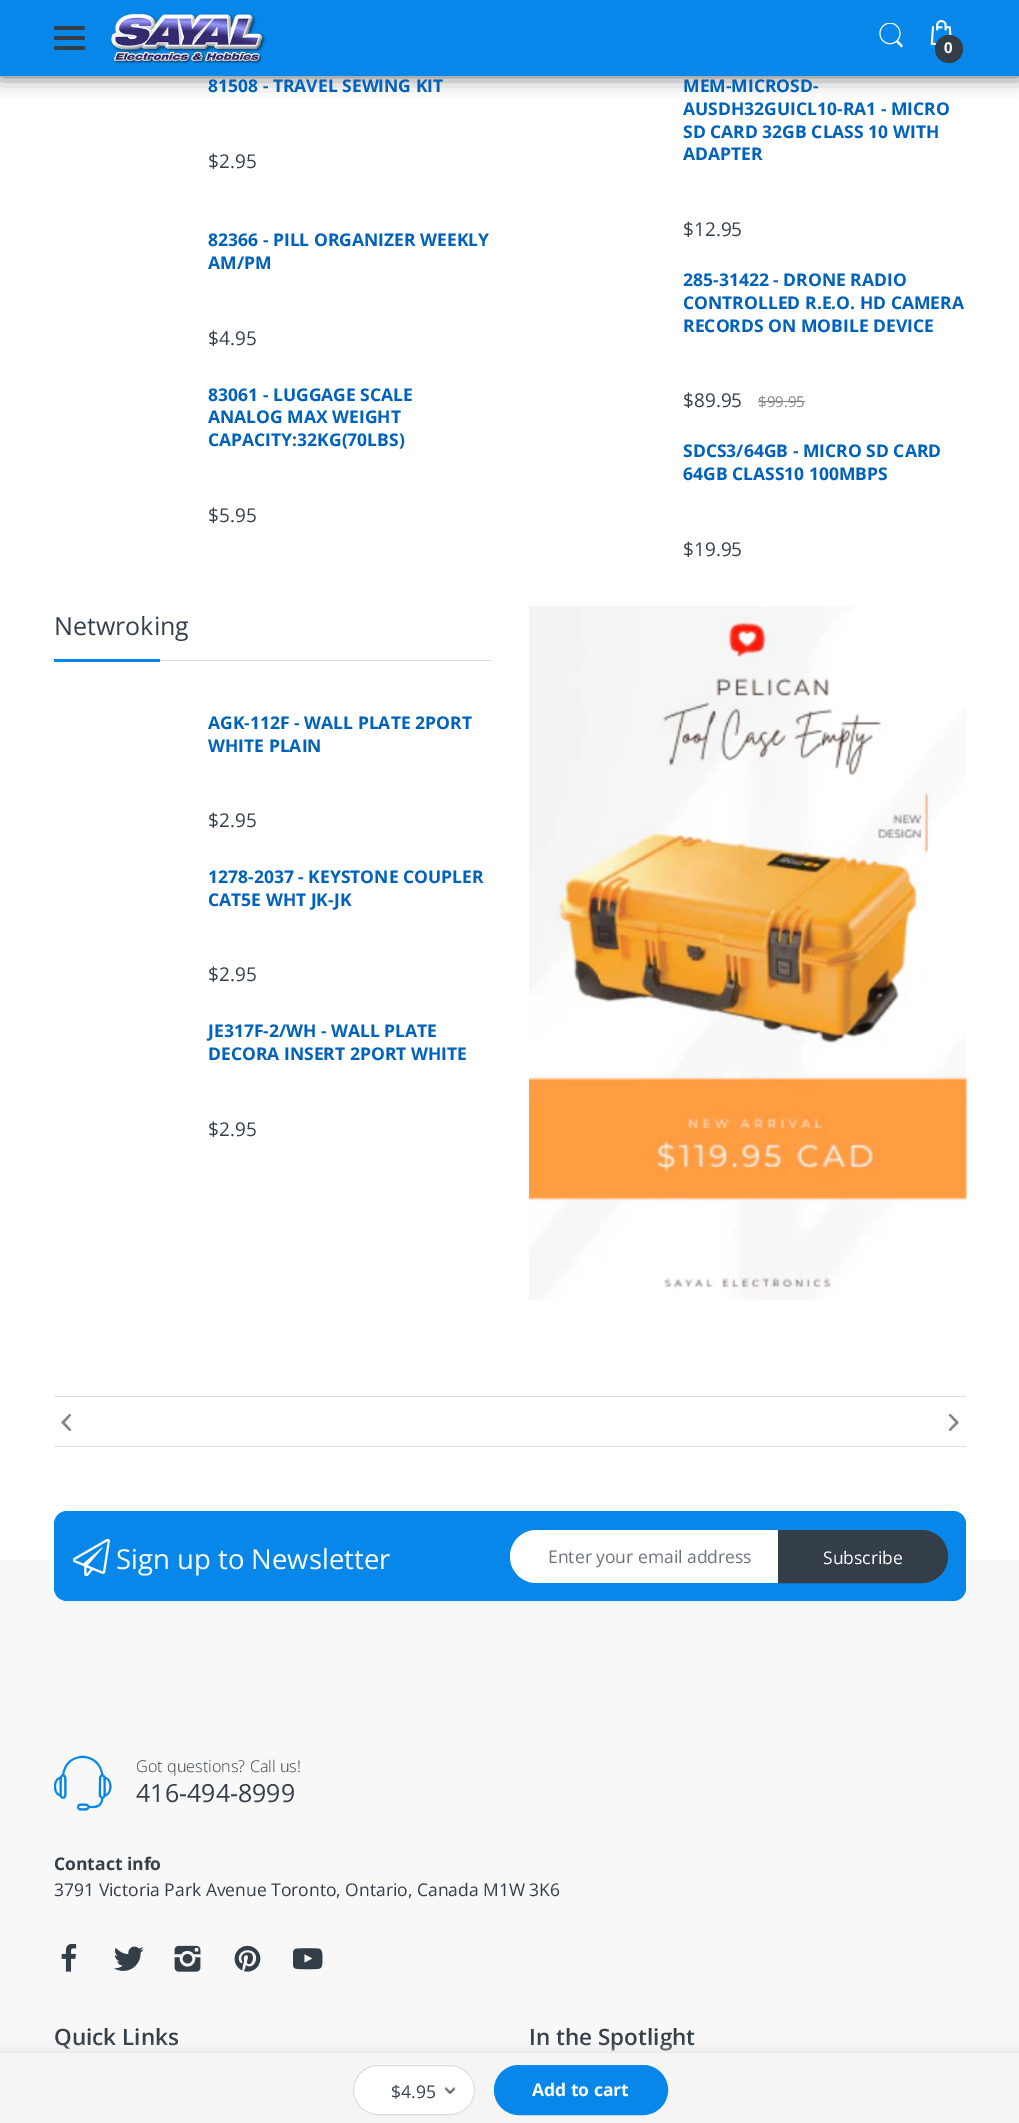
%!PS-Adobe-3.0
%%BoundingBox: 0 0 1019 2123
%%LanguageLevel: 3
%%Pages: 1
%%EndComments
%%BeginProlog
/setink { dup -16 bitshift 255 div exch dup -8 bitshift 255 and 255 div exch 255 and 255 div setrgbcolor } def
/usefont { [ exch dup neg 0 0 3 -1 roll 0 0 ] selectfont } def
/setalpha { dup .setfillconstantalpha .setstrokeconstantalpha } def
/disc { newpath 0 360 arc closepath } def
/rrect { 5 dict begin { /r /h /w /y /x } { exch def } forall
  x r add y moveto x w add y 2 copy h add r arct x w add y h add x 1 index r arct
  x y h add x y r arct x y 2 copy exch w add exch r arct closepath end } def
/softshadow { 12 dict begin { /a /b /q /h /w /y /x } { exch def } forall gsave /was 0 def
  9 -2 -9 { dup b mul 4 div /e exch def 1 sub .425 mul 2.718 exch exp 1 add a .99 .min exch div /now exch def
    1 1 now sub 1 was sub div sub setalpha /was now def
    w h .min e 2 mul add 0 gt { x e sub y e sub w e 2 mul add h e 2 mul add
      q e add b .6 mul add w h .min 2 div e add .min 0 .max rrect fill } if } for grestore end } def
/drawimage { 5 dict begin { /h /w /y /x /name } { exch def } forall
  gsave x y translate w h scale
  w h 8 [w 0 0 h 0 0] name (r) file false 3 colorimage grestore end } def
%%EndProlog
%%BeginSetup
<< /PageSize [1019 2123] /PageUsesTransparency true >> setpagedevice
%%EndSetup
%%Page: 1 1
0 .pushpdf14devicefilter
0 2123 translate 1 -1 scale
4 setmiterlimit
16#FFFFFF setink
0 0 1019 2123 rectfill
16#000000 setink
0 0 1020 76 0 9.5 0.65 softshadow
16#0787EA setink
0 0 1019 76 rectfill
16#333E48 setink
54 26 31 4 2 rrect fill
54 36 31 4 2 rrect fill
54 46 31 4 2 rrect fill
(img1.raw) 110 12 156 52 drawimage
(img2.raw) 879 23 24 25 drawimage
(img3.raw) 930 20 22 25 drawimage
949 49 14 disc fill
/OpenSans-Bold 15 usefont
16#FFFFFF setink
944 53 moveto (0) show
/OpenSans-Bold 17.5 usefont
16#0062BD setink
208 92 moveto (81508 - TRAVEL SEWING KIT) show
/OpenSans-Regular 19 usefont
16#343F49 setink
208 168 moveto ($2.95) show
/OpenSans-Bold 17.5 usefont
16#0062BD setink
208 246 moveto (82366 - PILL ORGANIZER WEEKLY) show
208 269 moveto (AM/PM) show
/OpenSans-Regular 19 usefont
16#343F49 setink
208 345 moveto ($4.95) show
/OpenSans-Bold 17.5 usefont
16#0062BD setink
[
    [(83061 - LUGGAGE SCALE) 208 401]
    [(ANALOG MAX WEIGHT) 208 423]
    [(CAPACITY:32KG\(70LBS\)) 208 446]
] { aload pop moveto show } forall
/OpenSans-Regular 19 usefont
16#343F49 setink
208 522 moveto ($5.95) show
/OpenSans-Bold 17.5 usefont
16#0062BD setink
[
    [(MEM-MICROSD-) 683 92]
    [(AUSDH32GUICL10-RA1 - MICRO) 683 115]
    [(SD CARD 32GB CLASS 10 WITH) 683 138]
    [(ADAPTER) 683 160]
] { aload pop moveto show } forall
/OpenSans-Regular 19 usefont
16#343F49 setink
683 236 moveto ($12.95) show
/OpenSans-Bold 17.5 usefont
16#0062BD setink
[
    [(285-31422 - DRONE RADIO) 683 286]
    [(CONTROLLED R.E.O. HD CAMERA) 683 309]
    [(RECORDS ON MOBILE DEVICE) 683 332]
] { aload pop moveto show } forall
/OpenSans-Regular 19 usefont
16#343F49 setink
683 407 moveto ($89.95) show
/OpenSans-Regular 15 usefont
16#848484 setink
758 407 moveto ($99.95) show
758 401 47 1 rectfill
/OpenSans-Bold 17.5 usefont
16#0062BD setink
683 457 moveto (SDCS3/64GB - MICRO SD CARD) show
683 480 moveto (64GB CLASS10 100MBPS) show
/OpenSans-Regular 19 usefont
16#343F49 setink
683 556 moveto ($19.95) show
16#DDDDDD setink
160 660 331 1 rectfill
/OpenSans-Regular 25 usefont
16#343F49 setink
54 635 moveto (Netwroking) show
16#0787EA setink
54 659 106 3 rectfill
/OpenSans-Bold 17.5 usefont
16#0062BD setink
208 729 moveto (AGK-112F - WALL PLATE 2PORT) show
208 752 moveto (WHITE PLAIN) show
/OpenSans-Regular 19 usefont
16#343F49 setink
208 827 moveto ($2.95) show
/OpenSans-Bold 17.5 usefont
16#0062BD setink
208 883 moveto (1278-2037 - KEYSTONE COUPLER) show
208 906 moveto (CAT5E WHT JK-JK) show
/OpenSans-Regular 19 usefont
16#343F49 setink
208 981 moveto ($2.95) show
/OpenSans-Bold 17.5 usefont
16#0062BD setink
208 1037 moveto (JE317F-2/WH - WALL PLATE) show
208 1060 moveto (DECORA INSERT 2PORT WHITE) show
/OpenSans-Regular 19 usefont
16#343F49 setink
208 1136 moveto ($2.95) show
(img4.raw) 529 606 438 694 drawimage
16#DDDDDD setink
54 1396 912 1 rectfill
54 1446 912 1 rectfill
(img5.raw) 61 1413 11 19 drawimage
(img6.raw) 948 1413 11 19 drawimage
16#F8F8F8 setink
0 1560 1019 493 rectfill
16#0787EA setink
54 1511 912 90 13 rrect fill
(img7.raw) 73 1539 37 37 drawimage
/OpenSans-Regular 27.5 usefont
16#FFFFFF setink
116 1569 moveto (Sign up to Newsletter) show
510 1530 373 53 26.5 rrect fill
/OpenSans-Regular 17.5 usefont
16#6C757D setink
548 1563 moveto (Enter your email address) show
16#333E48 setink
778.5 1530.5 moveto 921.5 1530.5 lineto 936 1530.5 947.5 1542 947.5 1556.5 curveto 947.5 1571 936 1582.5 921.5 1582.5 curveto 778.5 1582.5 lineto closepath gsave fill grestore
stroke
16#FFFFFF setink
823 1564 moveto (Subscribe) show
(img8.raw) 54 1755 58 56 drawimage
/OpenSans-Light 16.25 usefont
16#343F49 setink
136 1772 moveto (Got questions? Call us!) show
/OpenSans-Regular 25 usefont
136 1802 moveto (416-494-8999) show
/OpenSans-Bold 17.5 usefont
54 1870 moveto (Contact info) show
/OpenSans-Regular 17.5 usefont
54 1896 moveto (3791 Victoria Park Avenue Toronto, Ontario, Canada M1W 3K6) show
(img9.raw) 61 1944 16 28 drawimage
(img10.raw) 114 1946 30 25 drawimage
(img11.raw) 174 1945 27 27 drawimage
(img12.raw) 234 1945 27 27 drawimage
(img13.raw) 293 1948 30 22 drawimage
/OpenSans-SemiBold 22.5 usefont
54 2045 moveto (Quick Links) show
529 2045 moveto (In the Spotlight) show
16#DDDDDD setink
0 2053 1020 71 0 6 1 softshadow
16#F5F5F5 setink
0 2053 1019 70 rectfill
16#FFFFFF setink
353 2065 122 50 25 rrect fill
(img14.raw) 445 2087 11 7 drawimage
16#DDDDDD setink
353.5 2065.5 121 49 24.5 rrect stroke
/OpenSans-Regular 17.5 usefont
16#343F49 setink
391 2098 moveto ($4.95) show
16#0787EA setink
494.5 2065.5 173 49 24.5 rrect gsave fill grestore
stroke
/OpenSans-Bold 17.5 usefont
16#FFFFFF setink
532 2096 moveto (Add to cart) show
.poppdf14devicefilter showpage
%%EOF
